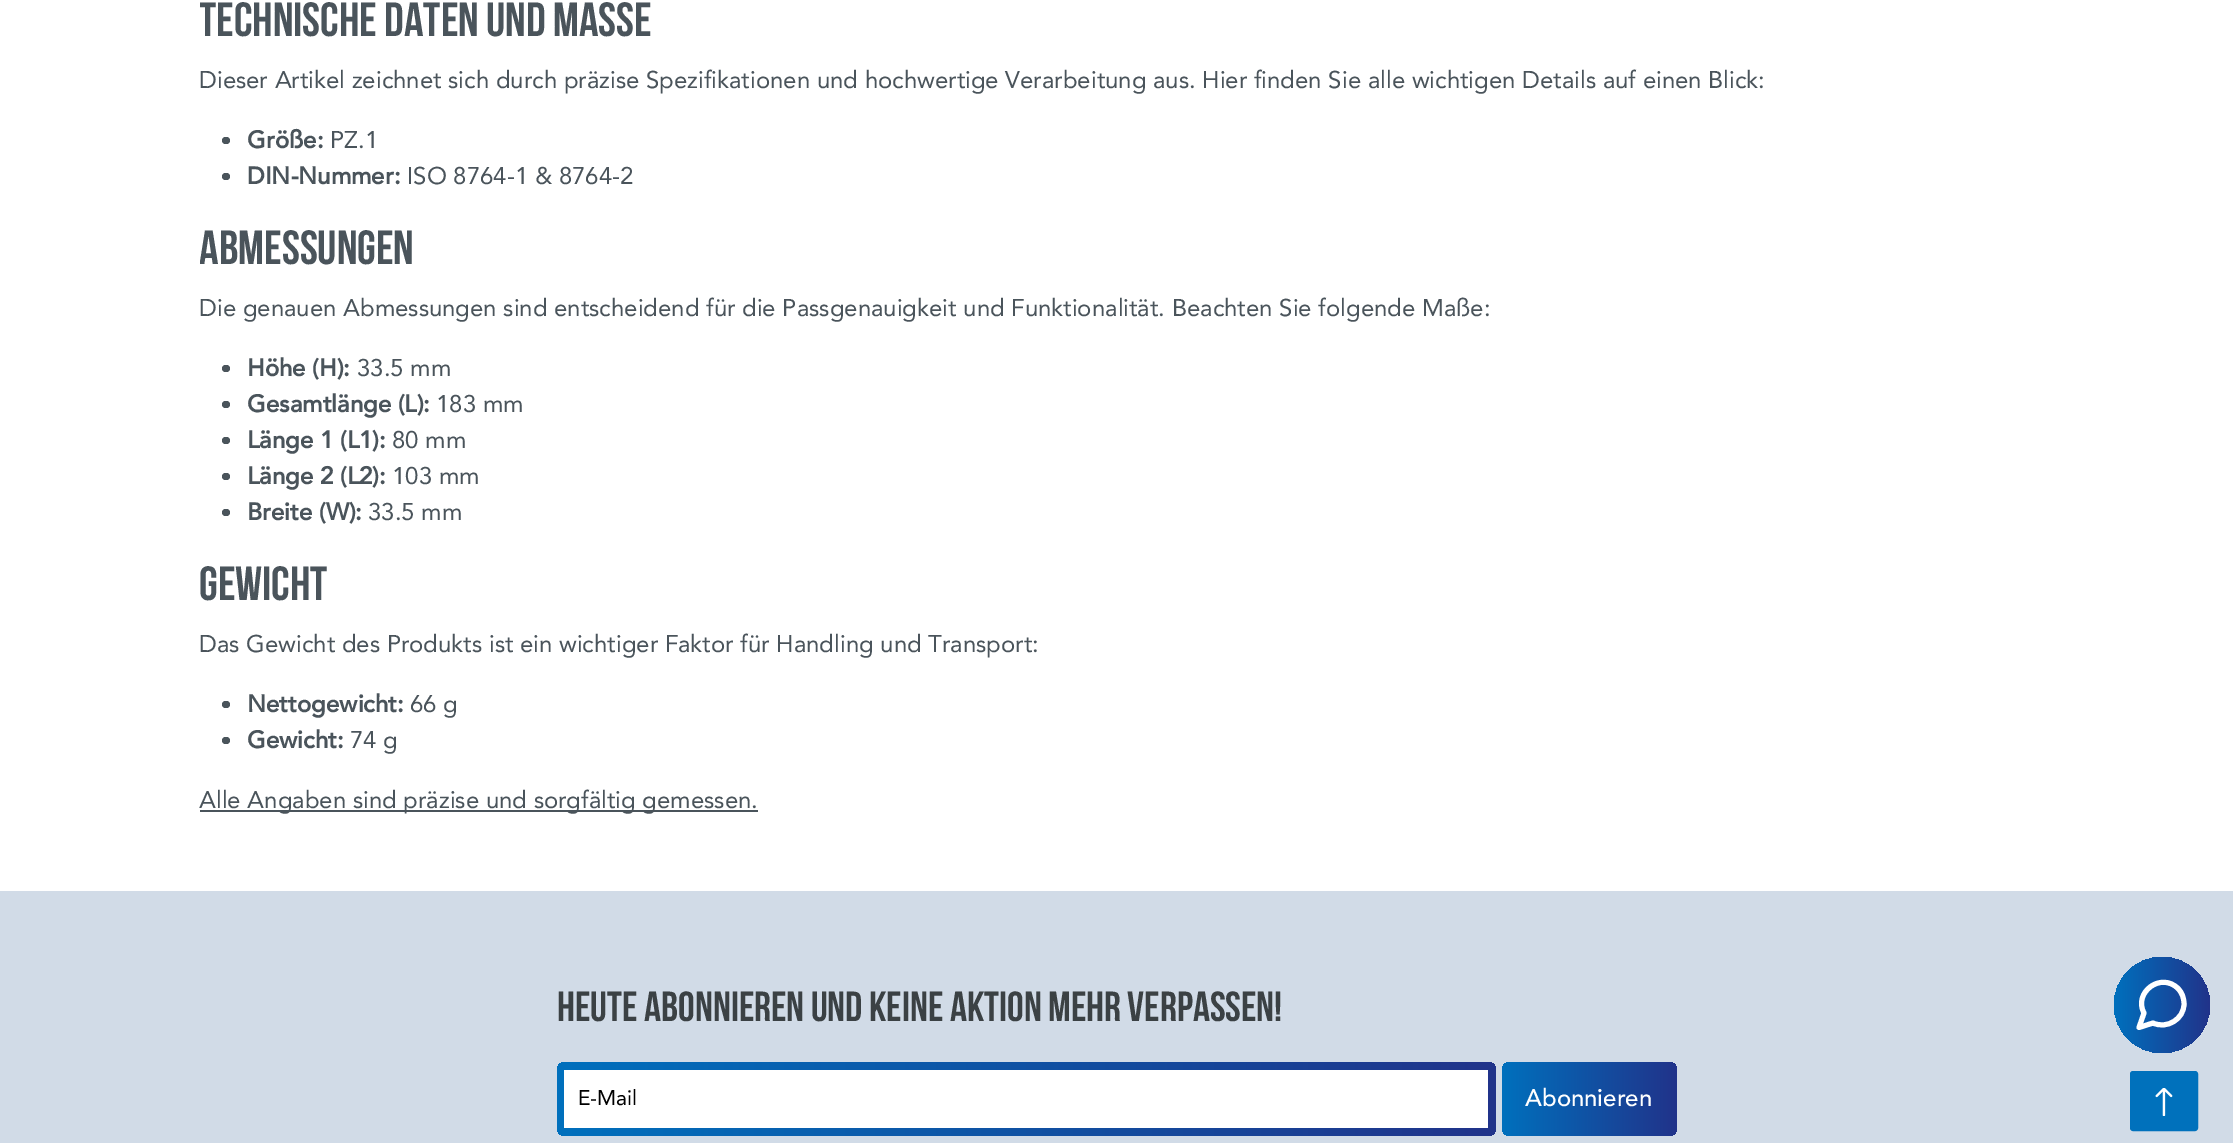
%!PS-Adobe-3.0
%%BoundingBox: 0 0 2233 1143
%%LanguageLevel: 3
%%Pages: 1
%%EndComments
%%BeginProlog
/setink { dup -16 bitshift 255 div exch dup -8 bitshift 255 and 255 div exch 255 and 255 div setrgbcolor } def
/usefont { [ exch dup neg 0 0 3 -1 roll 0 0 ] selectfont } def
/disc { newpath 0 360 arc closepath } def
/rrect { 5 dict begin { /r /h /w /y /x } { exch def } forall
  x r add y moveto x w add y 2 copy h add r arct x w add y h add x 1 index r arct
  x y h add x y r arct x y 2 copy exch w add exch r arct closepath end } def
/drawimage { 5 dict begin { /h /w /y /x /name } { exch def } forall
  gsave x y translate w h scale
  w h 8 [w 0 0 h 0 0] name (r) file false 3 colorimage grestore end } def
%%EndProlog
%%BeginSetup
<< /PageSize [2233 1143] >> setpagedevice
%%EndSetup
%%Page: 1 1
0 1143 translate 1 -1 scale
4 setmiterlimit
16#FFFFFF setink
0 0 2233 1143 rectfill
gsave
200 0 1836 855 rectclip
/BebasNeue-Bold 48 usefont
16#4A545B setink
199 36 moveto (Technische Daten und Maße) show
grestore
/Avenir-Regular 24 usefont
16#4A545B setink
199 88 moveto (Dieser Artikel zeichnet sich durch präzise Spezifikationen und hochwertige Verarbeitung aus. Hier finden Sie alle wichtigen Details auf einen Blick:) show
222 137 8 7 3.5 rrect fill
/Avenir-Bold 24 usefont
247 148 moveto (Größe:) show
/Avenir-Regular 24 usefont
330 148 moveto (PZ.1) show
222 173 8 7 3.5 rrect fill
/Avenir-Bold 24 usefont
247 184 moveto (DIN-Nummer:) show
/Avenir-Regular 24 usefont
407 184 moveto (ISO 8764-1 & 8764-2) show
gsave
200 0 1836 855 rectclip
/BebasNeue-Bold 48 usefont
199 264 moveto (Abmessungen) show
grestore
199 316 moveto (Die genauen Abmessungen sind entscheidend für die Passgenauigkeit und Funktionalität. Beachten Sie folgende Maße:) show
222 365 8 7 3.5 rrect fill
/Avenir-Bold 24 usefont
247 376 moveto (Höhe \(H\):) show
/Avenir-Regular 24 usefont
357 376 moveto (33.5 mm) show
222 401 8 7 3.5 rrect fill
/Avenir-Bold 24 usefont
247 412 moveto (Gesamtlänge \(L\):) show
/Avenir-Regular 24 usefont
436 412 moveto (183 mm) show
222 437 8 7 3.5 rrect fill
/Avenir-Bold 24 usefont
247 448 moveto (Länge 1 \(L1\):) show
/Avenir-Regular 24 usefont
392 448 moveto (80 mm) show
222 473 8 7 3.5 rrect fill
/Avenir-Bold 24 usefont
247 484 moveto (Länge 2 \(L2\):) show
/Avenir-Regular 24 usefont
392 484 moveto (103 mm) show
222 509 8 7 3.5 rrect fill
/Avenir-Bold 24 usefont
247 520 moveto (Breite \(W\):) show
/Avenir-Regular 24 usefont
368 520 moveto (33.5 mm) show
/BebasNeue-Bold 48 usefont
199 600 moveto (Gewicht) show
/Avenir-Regular 24 usefont
199 652 moveto (Das Gewicht des Produkts ist ein wichtiger Faktor für Handling und Transport:) show
222 701 8 7 3.5 rrect fill
/Avenir-Bold 24 usefont
247 712 moveto (Nettogewicht:) show
/Avenir-Regular 24 usefont
410 712 moveto (66 g) show
222 737 8 7 3.5 rrect fill
/Avenir-Bold 24 usefont
247 748 moveto (Gewicht:) show
/Avenir-Regular 24 usefont
350 748 moveto (74 g) show
200 810 558 2 rectfill
199 808 moveto (Alle Angaben sind präzise und sorgfältig gemessen.) show
16#D1DBE7 setink
0 891 2233 252 rectfill
/BebasNeue-Regular 42 usefont
16#3B4144 setink
557 1021 moveto (Heute abonnieren und keine aktion mehr verpassen!) show
gsave 557 1062 939 74 8 rrect clip newpath
<< /ShadingType 2 /ColorSpace /DeviceRGB /Coords [557 1099 1496 1099] /Extend [true true] /Function << /FunctionType 2 /Domain [0 1] /C0 [0 0.439 0.741] /C1 [0.129 0.2 0.541] /N 1 >> >> shfill grestore
16#FFFFFF setink
564 1070 924 58 rectfill
/Avenir-Regular 21 usefont
16#000000 setink
578 1105 moveto (E-Mail) show
gsave 1502 1062 175 74 8 rrect clip newpath
<< /ShadingType 2 /ColorSpace /DeviceRGB /Coords [1502 1099 1677 1099] /Extend [true true] /Function << /FunctionType 2 /Domain [0 1] /C0 [0 0.439 0.741] /C1 [0.129 0.2 0.541] /N 1 >> >> shfill grestore
/Avenir-Medium 24 usefont
16#FFFFFF setink
1525 1106 moveto (Abonnieren) show
gsave 2162 1005 48 disc clip newpath
<< /ShadingType 2 /ColorSpace /DeviceRGB /Coords [2114 1005 2210 1005] /Extend [true true] /Function << /FunctionType 2 /Domain [0 1] /C0 [0 0.439 0.741] /C1 [0.129 0.2 0.541] /N 1 >> >> shfill grestore
5 setlinewidth
1 setlinecap
1 setlinejoin
2184 1004 moveto 2184 1019 2167 1029.5 2153 1023 curveto 2139 1027.5 lineto 2144 1013 lineto 2133 992.5 2161 971.5 2178 988.5 curveto 2182 992.5 2184 998 2184 1004 curveto closepath stroke
16#0071BC setink
2131 1072 66 58 2 rrect gsave fill grestore
2 setlinewidth
0 setlinecap
0 setlinejoin
stroke
(img1.raw) 2155 1088 18 28 drawimage
showpage
%%EOF
